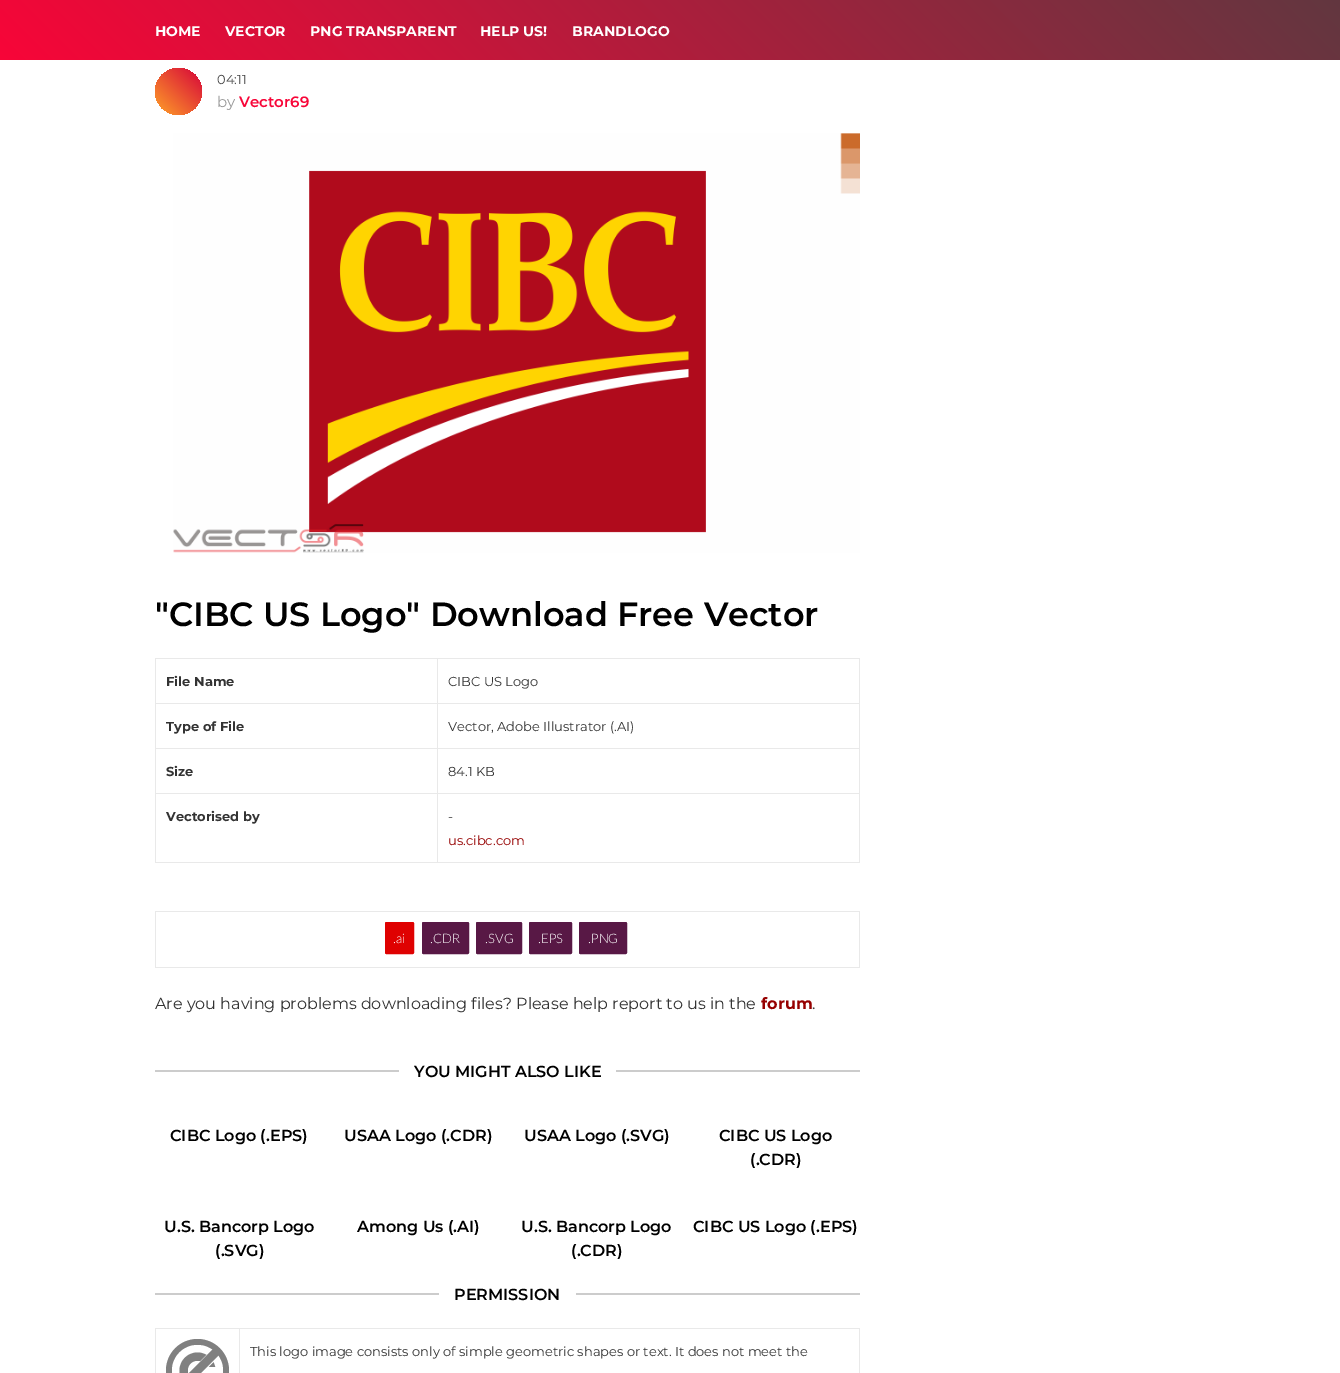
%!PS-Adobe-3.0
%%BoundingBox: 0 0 1340 1373
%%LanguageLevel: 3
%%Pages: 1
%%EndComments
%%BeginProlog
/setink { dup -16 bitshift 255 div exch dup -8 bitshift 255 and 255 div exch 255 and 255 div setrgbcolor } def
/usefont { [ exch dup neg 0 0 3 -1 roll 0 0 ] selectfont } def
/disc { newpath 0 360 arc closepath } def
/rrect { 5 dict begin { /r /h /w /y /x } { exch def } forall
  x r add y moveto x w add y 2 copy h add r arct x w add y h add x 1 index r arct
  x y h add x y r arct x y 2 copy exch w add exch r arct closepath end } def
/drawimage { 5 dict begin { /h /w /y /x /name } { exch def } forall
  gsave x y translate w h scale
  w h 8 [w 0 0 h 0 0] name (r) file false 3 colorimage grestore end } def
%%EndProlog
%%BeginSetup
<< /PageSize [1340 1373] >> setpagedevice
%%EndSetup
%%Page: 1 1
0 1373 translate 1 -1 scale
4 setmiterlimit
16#FFFFFF setink
0 0 1340 1373 rectfill
gsave 0 0 moveto 1340 0 lineto 1340 60 lineto 0 60 lineto closepath clip newpath
<< /ShadingType 2 /ColorSpace /DeviceRGB /Coords [320 380 1020 -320] /Extend [true true] /Function << /FunctionType 2 /Domain [0 1] /C0 [0.973 0.02 0.22] /C1 [0.384 0.216 0.251] /N 1 >> >> shfill grestore
/Montserrat-Bold 14 usefont
[
    [(HOME) 155 36]
    [(VECTOR) 225 36]
    [(PNG TRANSPARENT) 310 36]
    [(HELP US!) 480 36]
    [(BRANDLOGO) 572 36]
] { aload pop moveto show } forall
gsave 178.5 91.5 23.5 disc clip newpath
<< /ShadingType 2 /ColorSpace /DeviceRGB /Coords [155 115 202 68] /Extend [true true] /Function << /FunctionType 2 /Domain [0 1] /C0 [1 0.631 0.157] /C1 [0.839 0.012 0.227] /N 1 >> >> shfill grestore
/Montserrat-Regular 13 usefont
16#444444 setink
217 84 moveto (04:11) show
/Montserrat-Regular 15 usefont
16#999999 setink
217 107 moveto (by) show
/Montserrat-SemiBold 15 usefont
16#F80538 setink
239 107 moveto (Vector69) show
(img1.raw) 173 133 687 420 drawimage
/Montserrat-SemiBold 33.6 usefont
16#000000 setink
155 626 moveto ("CIBC US Logo" Download Free Vector) show
[
    [437 658 423 1 16#E9E9E9]
    [437 703 423 1 16#E9E9E9]
    [437 748 423 1 16#E9E9E9]
    [437 793 423 1 16#E9E9E9]
    [859 793 1 70 16#E9E9E9]
    [437 862 423 1 16#E9E9E9]
    [437 793 1 70 16#E9E9E9]
    [155 793 283 1 16#E9E9E9]
    [437 748 1 46 16#E9E9E9]
    [155 748 283 1 16#E9E9E9]
    [437 703 1 46 16#E9E9E9]
    [155 703 283 1 16#E9E9E9]
    [437 658 1 46 16#E9E9E9]
    [155 658 283 1 16#E9E9E9]
    [155 862 283 1 16#E9E9E9]
    [155 793 1 70 16#E9E9E9]
    [155 748 1 46 16#E9E9E9]
    [155 703 1 46 16#E9E9E9]
    [155 658 1 46 16#E9E9E9]
] { aload pop setink rectfill } forall
/Montserrat-Bold 13 usefont
16#333333 setink
166 686 moveto (File Name) show
[
    [859 748 1 46 16#E9E9E9]
    [859 703 1 46 16#E9E9E9]
    [859 658 1 46 16#E9E9E9]
] { aload pop setink rectfill } forall
/Montserrat-Regular 13 usefont
16#333333 setink
448 686 moveto (CIBC US Logo) show
/Montserrat-Bold 13 usefont
166 731 moveto (Type of File) show
/Montserrat-Regular 13 usefont
448 731 moveto (Vector, Adobe Illustrator \(.AI\)) show
/Montserrat-Bold 13 usefont
166 776 moveto (Size) show
/Montserrat-Regular 13 usefont
448 776 moveto (84.1 KB) show
/Montserrat-Bold 13 usefont
166 821 moveto (Vectorised by) show
/Montserrat-Regular 13 usefont
448 821 moveto (-) show
16#960000 setink
448 845 moveto (us.cibc.com) show
[
    [155 911 705 1 16#E9E9E9]
    [859 911 1 57 16#E9E9E9]
    [155 967 705 1 16#E9E9E9]
    [155 911 1 57 16#E9E9E9]
] { aload pop setink rectfill } forall
16#DF0101 setink
385.5 922.5 28 31 1 rrect gsave fill grestore
stroke
/Lato-Light 13 usefont
16#FFFFFF setink
393 943 moveto (.ai) show
16#581845 setink
422.5 922.5 46 31 1 rrect gsave fill grestore
stroke
16#FFFFFF setink
430 943 moveto (.CDR) show
16#581845 setink
476.5 922.5 45 31 1 rrect gsave fill grestore
stroke
16#FFFFFF setink
485 943 moveto (.SVG) show
16#581845 setink
529.5 922.5 42 31 1 rrect gsave fill grestore
stroke
16#FFFFFF setink
538 943 moveto (.EPS) show
16#581845 setink
579.5 922.5 47 31 1 rrect gsave fill grestore
stroke
16#FFFFFF setink
588 943 moveto (.PNG) show
/Montserrat-Regular 16 usefont
16#333333 setink
155 1009 moveto (Are you having problems downloading files? Please help report to us in the) show
/Montserrat-Bold 16 usefont
16#960000 setink
761 1009 moveto (forum) show
/Montserrat-Regular 16 usefont
16#333333 setink
812 1009 moveto (.) show
16#CCCCCC setink
155 1070 705 2 rectfill
16#FFFFFF setink
399 1070 217 2 rectfill
/Montserrat-SemiBold 16 usefont
16#000000 setink
[
    [(YOU MIGHT ALSO LIKE) 414 1077]
    [(CIBC Logo \(.EPS\)) 170 1141]
    [(USAA Logo \(.CDR\)) 344 1141]
    [(USAA Logo \(.SVG\)) 524 1141]
    [(CIBC US Logo) 719 1141]
    [(\(.CDR\)) 750 1165]
    [(U.S. Bancorp Logo) 164 1232]
    [(\(.SVG\)) 215 1256]
    [(Among Us \(.AI\)) 357 1232]
    [(U.S. Bancorp Logo) 521 1232]
    [(\(.CDR\)) 571 1256]
    [(CIBC US Logo \(.EPS\)) 693 1232]
] { aload pop moveto show } forall
16#CCCCCC setink
155 1293 705 2 rectfill
16#FFFFFF setink
439 1293 137 2 rectfill
16#000000 setink
454 1300 moveto (PERMISSION) show
[
    [239 1328 621 1 16#E9E9E9]
    [239 1328 1 45 16#E9E9E9]
    [155 1328 85 1 16#E9E9E9]
    [155 1328 1 45 16#E9E9E9]
] { aload pop setink rectfill } forall
16#808080 setink
197.5 1370.5 31.5 disc fill
16#FFFFFF setink
197.5 1370.5 25.5 disc fill
16#808080 setink
197.5 1370.5 18 disc fill
16#FFFFFF setink
197.5 1370.5 9.5 disc fill
206 1367 10 6 rectfill
178 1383.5 moveto 210.5 1351 lineto 217.5 1358 lineto 185 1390 lineto closepath fill
16#808080 setink
175 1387 moveto 214 1348 lineto 220 1354 lineto 181 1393 lineto closepath fill
16#E9E9E9 setink
859 1328 1 45 rectfill
/Montserrat-Regular 13 usefont
16#333333 setink
250 1356 moveto (This logo image consists only of simple geometric shapes or text. It does not meet the) show
showpage
%%EOF
